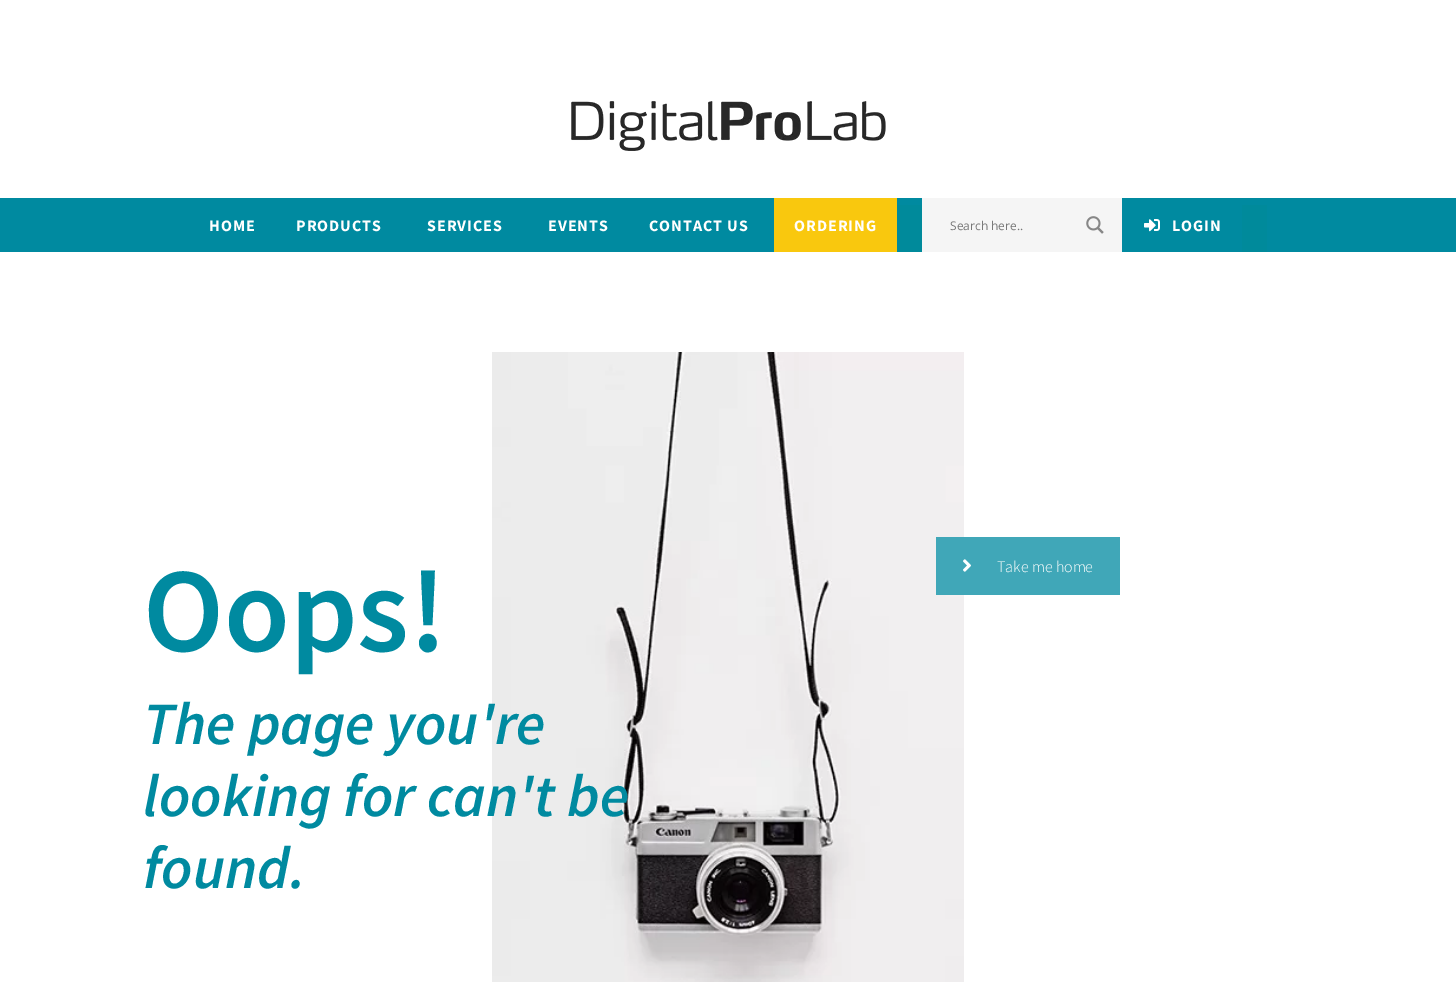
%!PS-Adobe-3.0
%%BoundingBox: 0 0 1456 982
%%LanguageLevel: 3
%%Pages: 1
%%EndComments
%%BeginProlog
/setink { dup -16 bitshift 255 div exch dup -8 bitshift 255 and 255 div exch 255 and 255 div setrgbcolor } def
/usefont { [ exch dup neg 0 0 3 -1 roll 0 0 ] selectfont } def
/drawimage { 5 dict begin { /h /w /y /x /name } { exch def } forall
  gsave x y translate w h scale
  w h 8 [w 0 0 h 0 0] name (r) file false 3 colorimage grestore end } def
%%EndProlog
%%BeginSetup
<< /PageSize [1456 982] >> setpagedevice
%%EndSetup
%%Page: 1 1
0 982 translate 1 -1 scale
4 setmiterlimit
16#FFFFFF setink
0 0 1456 982 rectfill
(img1.raw) 571 101 315 50 drawimage
16#008AA0 setink
0 198 1456 54 rectfill
/SourceSansPro-Bold 16 usefont
16#FFFFFF setink
209 231 moveto 1 0 (HOME) ashow
296 231 moveto 1 0 (PRODUCTS) ashow
427 231 moveto 1 0 (SERVICES) ashow
548 231 moveto 1 0 (EVENTS) ashow
649 231 moveto 1 0 (CONTACT US) ashow
16#F9C80E setink
774 198 123 54 rectfill
16#FFFFFF setink
794 231 moveto 1 0 (ORDERING) ashow
16#008A9B setink
897 205 25 47 rectfill
16#F5F5F5 setink
922 198 200 54 rectfill
/OpenSans-Regular 12 usefont
16#787878 setink
950 230 moveto (Search here..) show
(img2.raw) 1086 216 18 18 drawimage
(img3.raw) 1144 219 16 13 drawimage
/SourceSansPro-Bold 16 usefont
16#FFFFFF setink
1172 231 moveto 1 0 (LOGIN) ashow
16#008A9B setink
1242 205 25 47 rectfill
(img4.raw) 492 352 472 630 drawimage
16#40A7B8 setink
936 537 184 58 rectfill
(img5.raw) 963 559 8 13 drawimage
/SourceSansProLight-Light 16 usefont
16#FFFFFF setink
997 572 moveto (Take me home) show
/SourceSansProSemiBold-SemiBold 120 usefont
16#008AA0 setink
143 651 moveto (Oops!) show
/SourceSansProSemiBold-SemiBoldItalic 60 usefont
[
    [(The page you're) 143 744]
    [(looking for can't be) 143 816]
    [(found.) 143 888]
] { aload pop moveto show } forall
showpage
%%EOF
